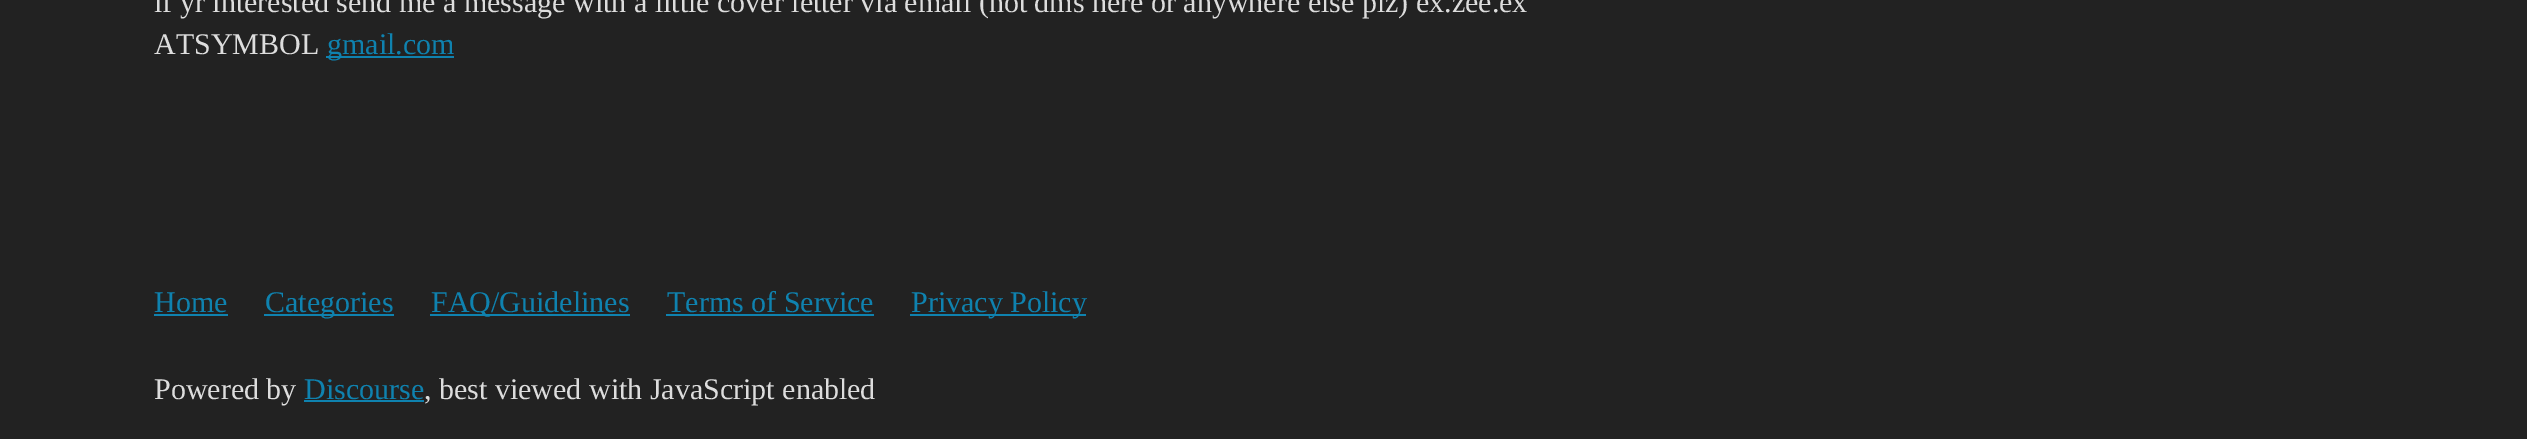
%!PS-Adobe-3.0
%%BoundingBox: 0 0 2527 439
%%LanguageLevel: 3
%%Pages: 1
%%EndComments
%%BeginProlog
/setink { dup -16 bitshift 255 div exch dup -8 bitshift 255 and 255 div exch 255 and 255 div setrgbcolor } def
/usefont { [ exch dup neg 0 0 3 -1 roll 0 0 ] selectfont } def
%%EndProlog
%%BeginSetup
<< /PageSize [2527 439] >> setpagedevice
%%EndSetup
%%Page: 1 1
0 439 translate 1 -1 scale
4 setmiterlimit
16#222222 setink
0 0 2527 439 rectfill
/LiberationSerif-Regular 30 usefont
16#DDDDDD setink
154 12 moveto (if yr interested send me a message with a little cover letter via email \(not dms here or anywhere else plz\) ex.zee.ex) show
154 54 moveto (ATSYMBOL) show
16#0F82AF setink
326 56 128 2 rectfill
327 54 moveto (gmail.com) show
154 312 moveto (Home) show
154 314 74 2 rectfill
264 314 130 2 rectfill
265 312 moveto (Categories) show
430 314 200 2 rectfill
431 312 moveto (FAQ/Guidelines) show
667 312 moveto (Terms of Service) show
666 314 208 2 rectfill
910 314 176 2 rectfill
911 312 moveto (Privacy Policy) show
16#DDDDDD setink
154 399 moveto (Powered by) show
16#0F82AF setink
304 399 moveto (Discourse) show
304 400 120 2 rectfill
16#DDDDDD setink
424 399 moveto (, best viewed with JavaScript enabled) show
showpage
%%EOF
